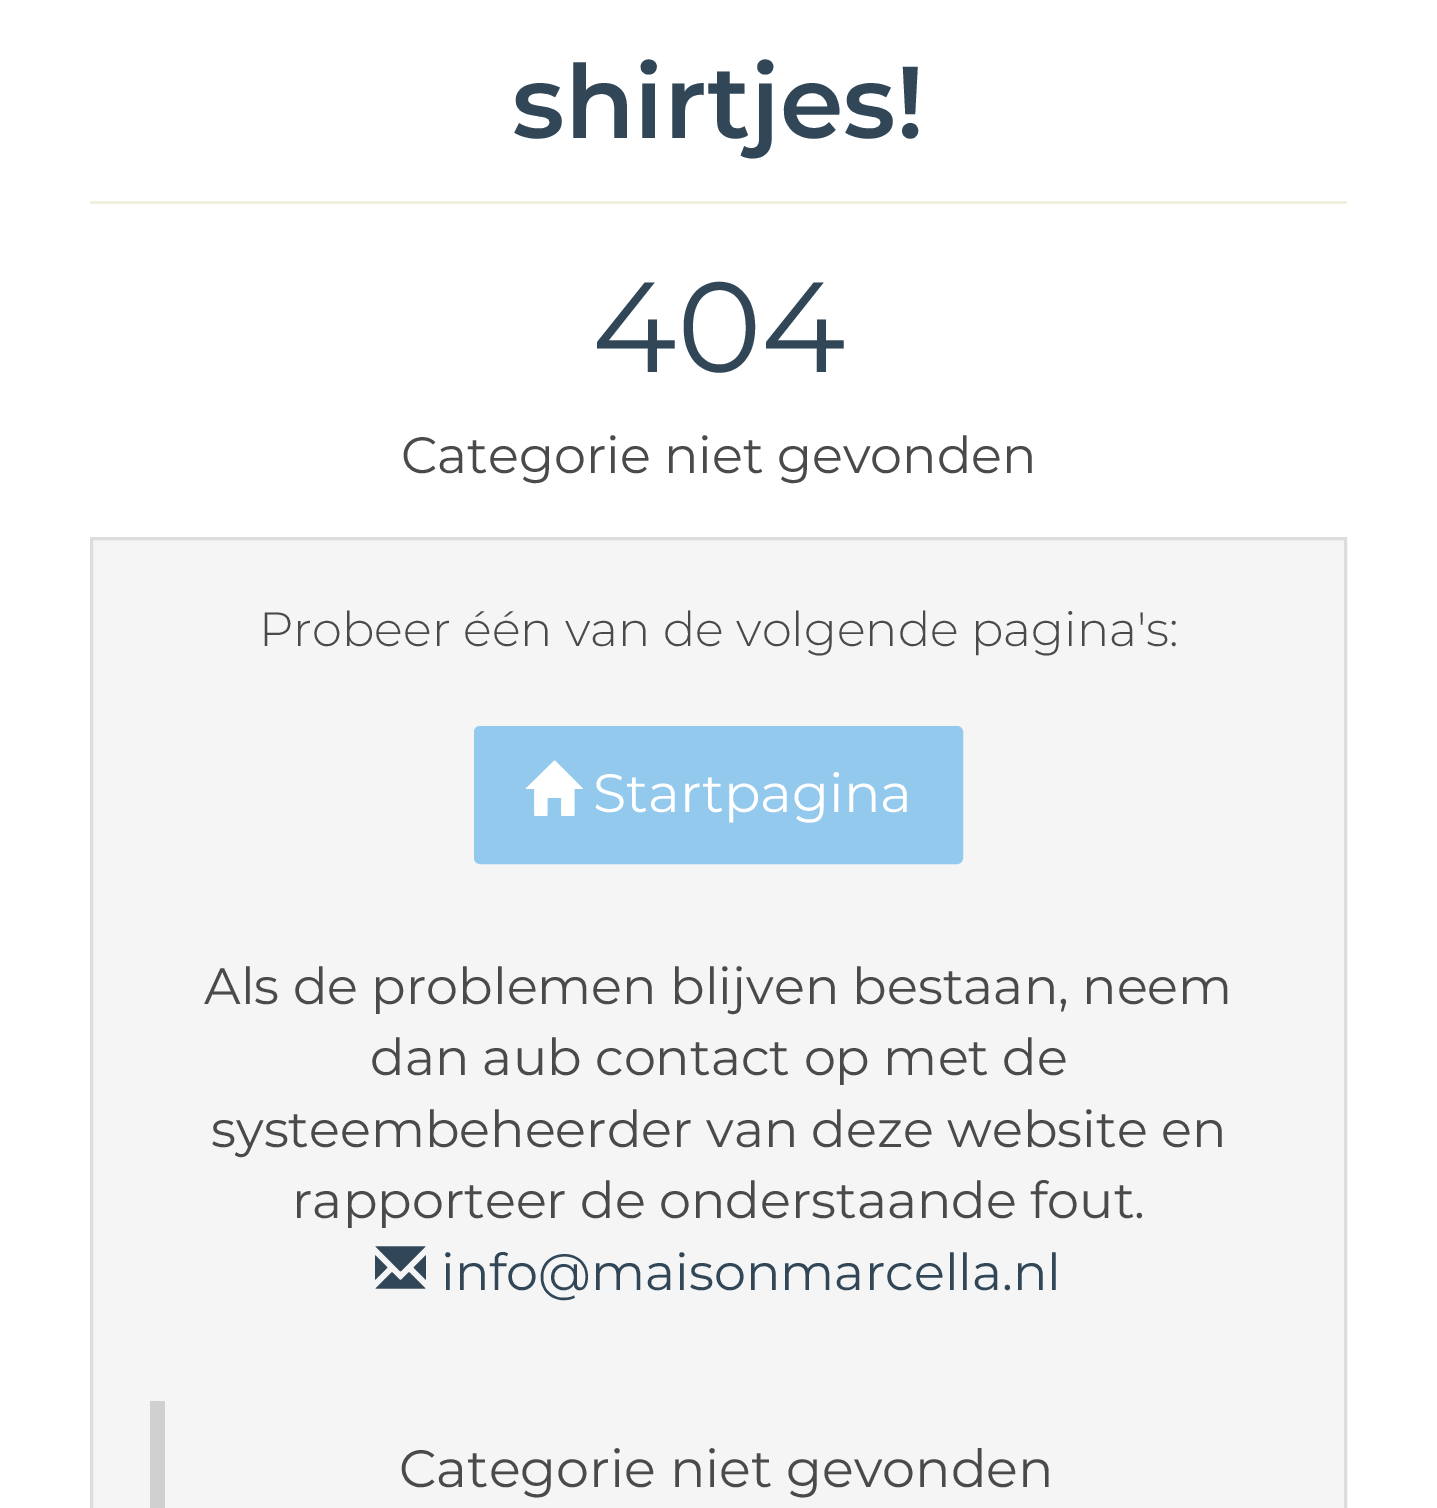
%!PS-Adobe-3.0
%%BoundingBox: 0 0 1437 1508
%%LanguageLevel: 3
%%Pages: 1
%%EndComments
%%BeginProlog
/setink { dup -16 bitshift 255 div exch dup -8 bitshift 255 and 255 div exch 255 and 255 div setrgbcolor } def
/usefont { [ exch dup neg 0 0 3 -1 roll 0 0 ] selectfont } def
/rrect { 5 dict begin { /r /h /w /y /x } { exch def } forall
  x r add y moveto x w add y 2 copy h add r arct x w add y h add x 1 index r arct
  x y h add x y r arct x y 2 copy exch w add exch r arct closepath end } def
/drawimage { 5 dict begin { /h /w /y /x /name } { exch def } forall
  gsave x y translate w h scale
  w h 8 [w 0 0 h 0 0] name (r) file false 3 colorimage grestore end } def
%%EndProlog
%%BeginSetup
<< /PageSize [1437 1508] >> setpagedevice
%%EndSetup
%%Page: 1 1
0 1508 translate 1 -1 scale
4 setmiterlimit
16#FFFFFF setink
0 0 1437 1508 rectfill
16#F0F0DC setink
90 201 1257 3 rectfill
/Montserrat-SemiBold 102 usefont
16#314757 setink
512 138 moveto (shirtjes!) show
/Montserrat-Regular 128 usefont
592 372 moveto (404) show
/Montserrat-Regular 51 usefont
16#4A4A4A setink
401 473 moveto (Categorie niet gevonden) show
16#F5F5F5 setink
91.5 538.5 moveto 1345.5 538.5 lineto 1345.5 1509.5 lineto 91.5 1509.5 lineto closepath gsave fill grestore
16#DDDDDD setink
3 setlinewidth
stroke
/Montserrat-Light 48 usefont
16#4A4A4A setink
259 646 moveto (Probeer één van de volgende pagina's:) show
16#93C9ED setink
475.5 727.5 486 135 4.5 rrect gsave fill grestore
stroke
(img1.raw) 525 760 58 56 drawimage
/Montserrat-Regular 54 usefont
16#FFFFFF setink
593 812 moveto (Startpagina) show
/Montserrat-Regular 51 usefont
16#4A4A4A setink
[
    [(Als de problemen blijven bestaan, neem) 204 1004]
    [(dan aub contact op met de) 370 1075]
    [(systeembeheerder van deze website en) 211 1147]
    [(rapporteer de onderstaande fout.) 292 1218]
] { aload pop moveto show } forall
(img2.raw) 375 1246 51 43 drawimage
16#314757 setink
441 1290 moveto (info@maisonmarcella.nl) show
16#D0D0D0 setink
150 1401 15 107 rectfill
/Montserrat-Regular 52.5 usefont
16#4A4A4A setink
399 1487 moveto (Categorie niet gevonden) show
showpage
%%EOF
